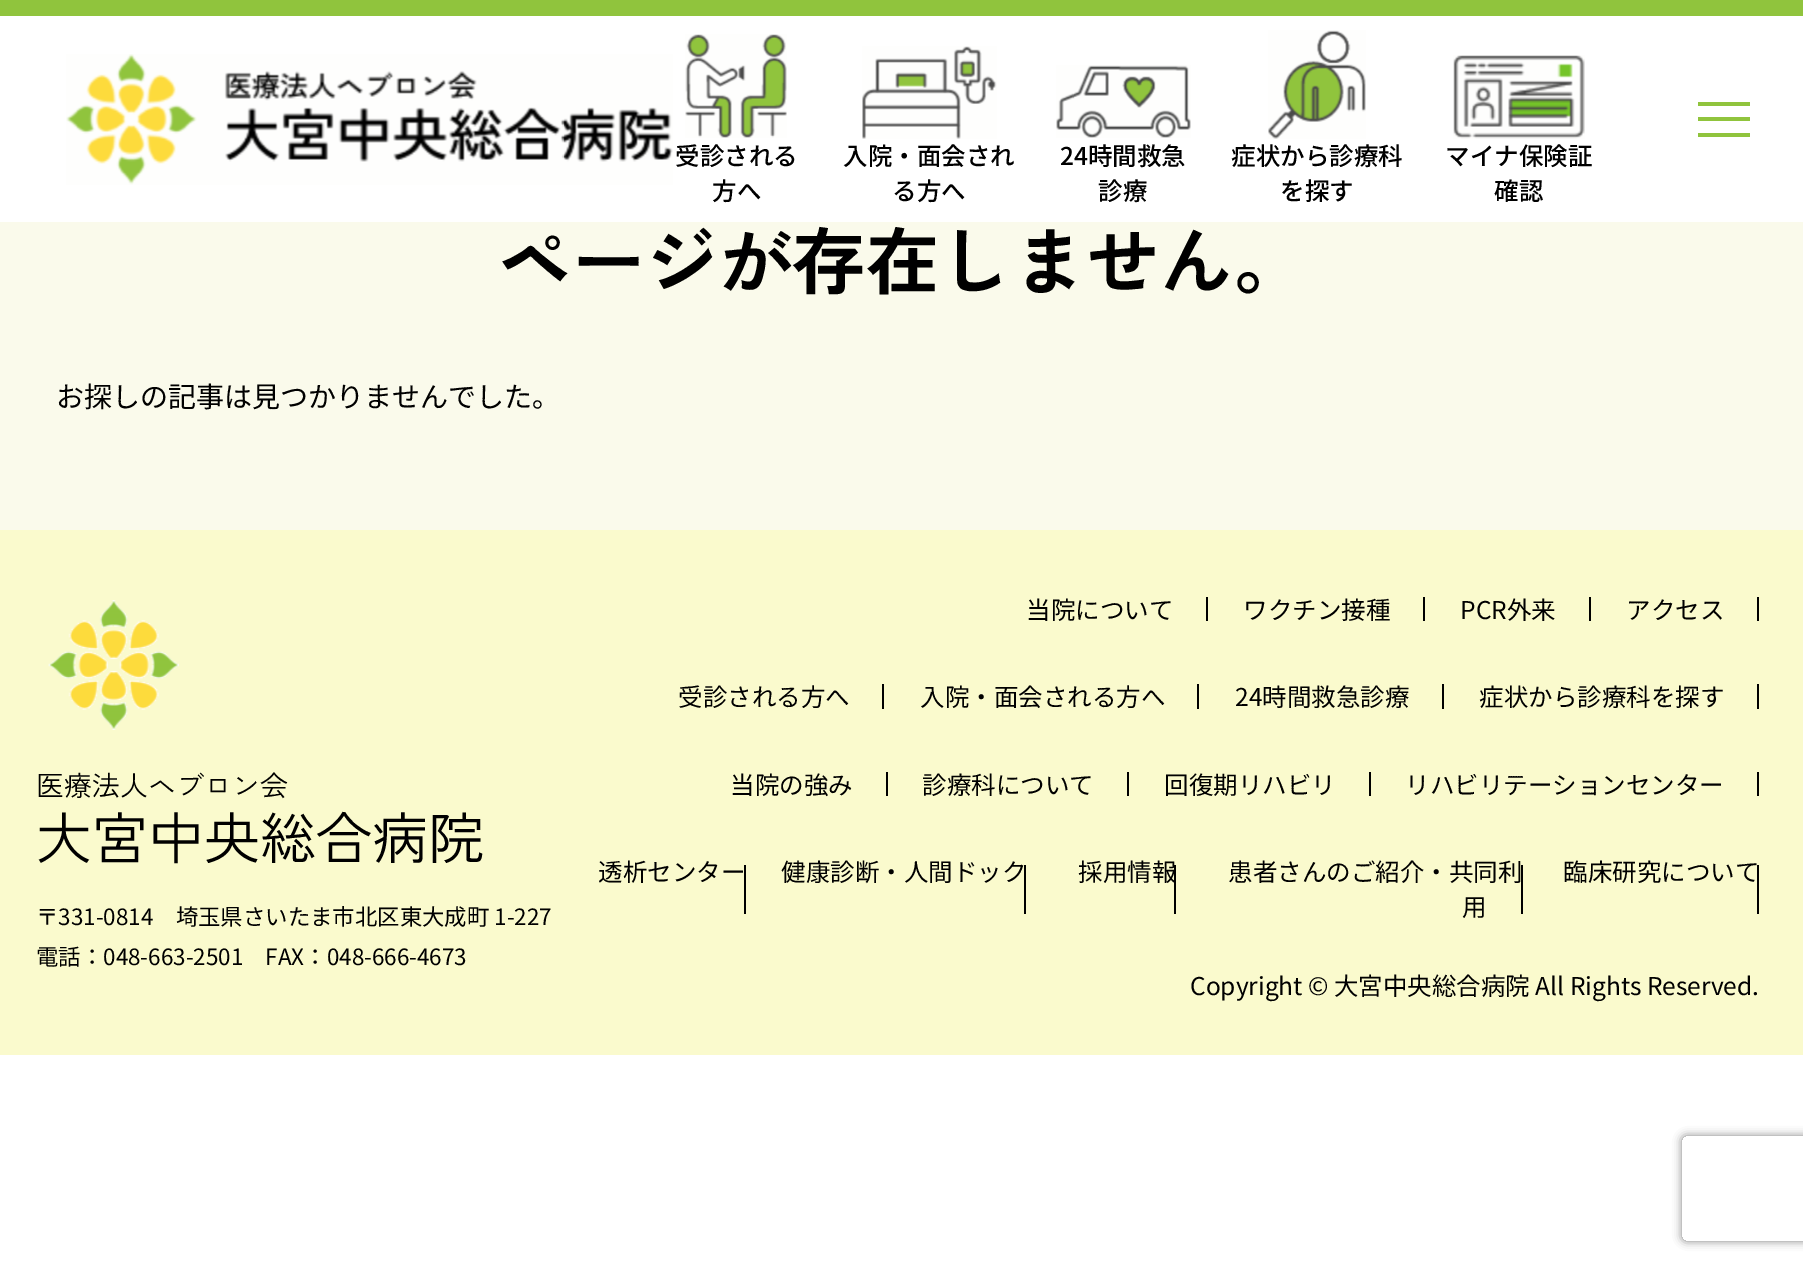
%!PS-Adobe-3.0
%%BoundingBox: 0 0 1803 1265
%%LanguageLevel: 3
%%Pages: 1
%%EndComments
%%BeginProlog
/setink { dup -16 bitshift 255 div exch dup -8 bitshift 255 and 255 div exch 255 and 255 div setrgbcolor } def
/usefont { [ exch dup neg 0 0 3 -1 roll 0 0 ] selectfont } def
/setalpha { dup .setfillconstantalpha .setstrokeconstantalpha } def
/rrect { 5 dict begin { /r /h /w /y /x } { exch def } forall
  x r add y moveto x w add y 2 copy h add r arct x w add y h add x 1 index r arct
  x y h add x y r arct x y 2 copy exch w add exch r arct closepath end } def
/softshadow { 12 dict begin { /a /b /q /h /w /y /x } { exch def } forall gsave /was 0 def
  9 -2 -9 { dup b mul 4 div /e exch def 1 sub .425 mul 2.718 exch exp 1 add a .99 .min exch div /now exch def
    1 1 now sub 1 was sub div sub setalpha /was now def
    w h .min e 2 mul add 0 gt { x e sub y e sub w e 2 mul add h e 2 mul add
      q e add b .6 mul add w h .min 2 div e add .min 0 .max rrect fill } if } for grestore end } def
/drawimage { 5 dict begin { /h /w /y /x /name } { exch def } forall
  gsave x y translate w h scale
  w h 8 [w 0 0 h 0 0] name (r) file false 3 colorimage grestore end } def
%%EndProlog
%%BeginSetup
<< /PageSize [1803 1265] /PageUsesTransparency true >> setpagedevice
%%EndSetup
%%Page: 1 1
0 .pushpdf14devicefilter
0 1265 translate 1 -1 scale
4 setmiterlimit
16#FFFFFF setink
0 0 1803 1265 rectfill
16#90C43D setink
0 0 1803 16 rectfill
(img1.raw) 66 54 607 131 drawimage
[
    [1698 102 52 4 16#90C43D]
    [1698 117 52 4 16#90C43D]
    [1698 133 52 4 16#90C43D]
] { aload pop setink rectfill } forall
(img2.raw) 685 34 102 104 drawimage
/NotoSansJP-Medium 24.5 usefont
16#000000 setink
675 165 moveto (受診される) show
712 200 moveto (方へ) show
(img3.raw) 862 46 135 93 drawimage
843 165 moveto (入院・面会され) show
892 200 moveto (る方へ) show
(img4.raw) 1056 65 135 73 drawimage
1060 165 moveto (24時間救急) show
1098 200 moveto (診療) show
(img5.raw) 1268 30 98 109 drawimage
1231 165 moveto (症状から診療科) show
1280 200 moveto (を探す) show
(img6.raw) 1453 55 132 84 drawimage
1445 165 moveto (マイナ保険証) show
1494 200 moveto (確認) show
16#FAFAEB setink
0 222 1803 308 rectfill
/ZenKakuGothicNew-Bold 73.5 usefont
16#000000 setink
498 289 moveto (ページが存在しません。) show
/NotoSansJP-Regular 28 usefont
56 407 moveto (お探しの記事は見つかりませんでした。) show
16#FAFACD setink
0 530 1803 525 rectfill
(img7.raw) 48 600 131 130 drawimage
/ZenKakuGothicNew-Regular 28 usefont
16#000000 setink
36 796 moveto (医療法人ヘブロン会) show
/ZenKakuGothicNew-Regular 56 usefont
36 859 moveto (大宮中央総合病院) show
/NotoSansJP-Regular 22.4 usefont
36 925 moveto (〒331-0814　埼玉県さいたま市北区東大成町 1-227) show
36 965 moveto (電話：048-663-2501　FAX：048-666-4673) show
/NotoSansJP-Regular 24.5 usefont
1026 619 moveto (当院について) show
1206 597 2 24 rectfill
1243 619 moveto (ワクチン接種) show
1423 597 2 24 rectfill
1460 619 moveto (PCR外来) show
1589 597 2 24 rectfill
1626 619 moveto (アクセス) show
1757 597 2 24 rectfill
678 706 moveto (受診される方へ) show
882 684 2 25 rectfill
920 706 moveto (入院・面会される方へ) show
1197 684 2 25 rectfill
1235 706 moveto (24時間救急診療) show
1442 684 2 25 rectfill
1479 706 moveto (症状から診療科を探す) show
1757 684 2 25 rectfill
730 794 moveto (当院の強み) show
886 772 2 24 rectfill
922 794 moveto (診療科について) show
1127 772 2 24 rectfill
1164 794 moveto (回復期リハビリ) show
1369 772 2 24 rectfill
1405 794 moveto (リハビリテーションセンター) show
1757 772 2 24 rectfill
598 881 moveto (透析センター) show
744 865 2 49 rectfill
781 881 moveto (健康診断・人間ドック) show
1024 865 2 49 rectfill
1078 881 moveto (採用情報) show
1174 865 2 49 rectfill
1228 881 moveto (患者さんのご紹介・共同利) show
1521 865 2 49 rectfill
1462 916 moveto (用) show
1563 881 moveto (臨床研究について) show
1757 865 2 49 rectfill
1190 995 moveto (Copyright © 大宮中央総合病院 All Rights Reserved.) show
gsave
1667 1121 moveto 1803 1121 lineto 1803 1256 lineto 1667 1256 lineto closepath 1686 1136 moveto 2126 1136 lineto 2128 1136 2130 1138 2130 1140 curveto 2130 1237 lineto 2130 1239 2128 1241 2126 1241 curveto 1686 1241 lineto 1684 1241 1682 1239 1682 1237 curveto 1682 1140 lineto 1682 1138 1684 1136 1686 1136 curveto closepath eoclip newpath
16#808080 setink
1682 1136 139 105 4 4.5 1 softshadow
grestore
.poppdf14devicefilter showpage
%%EOF
